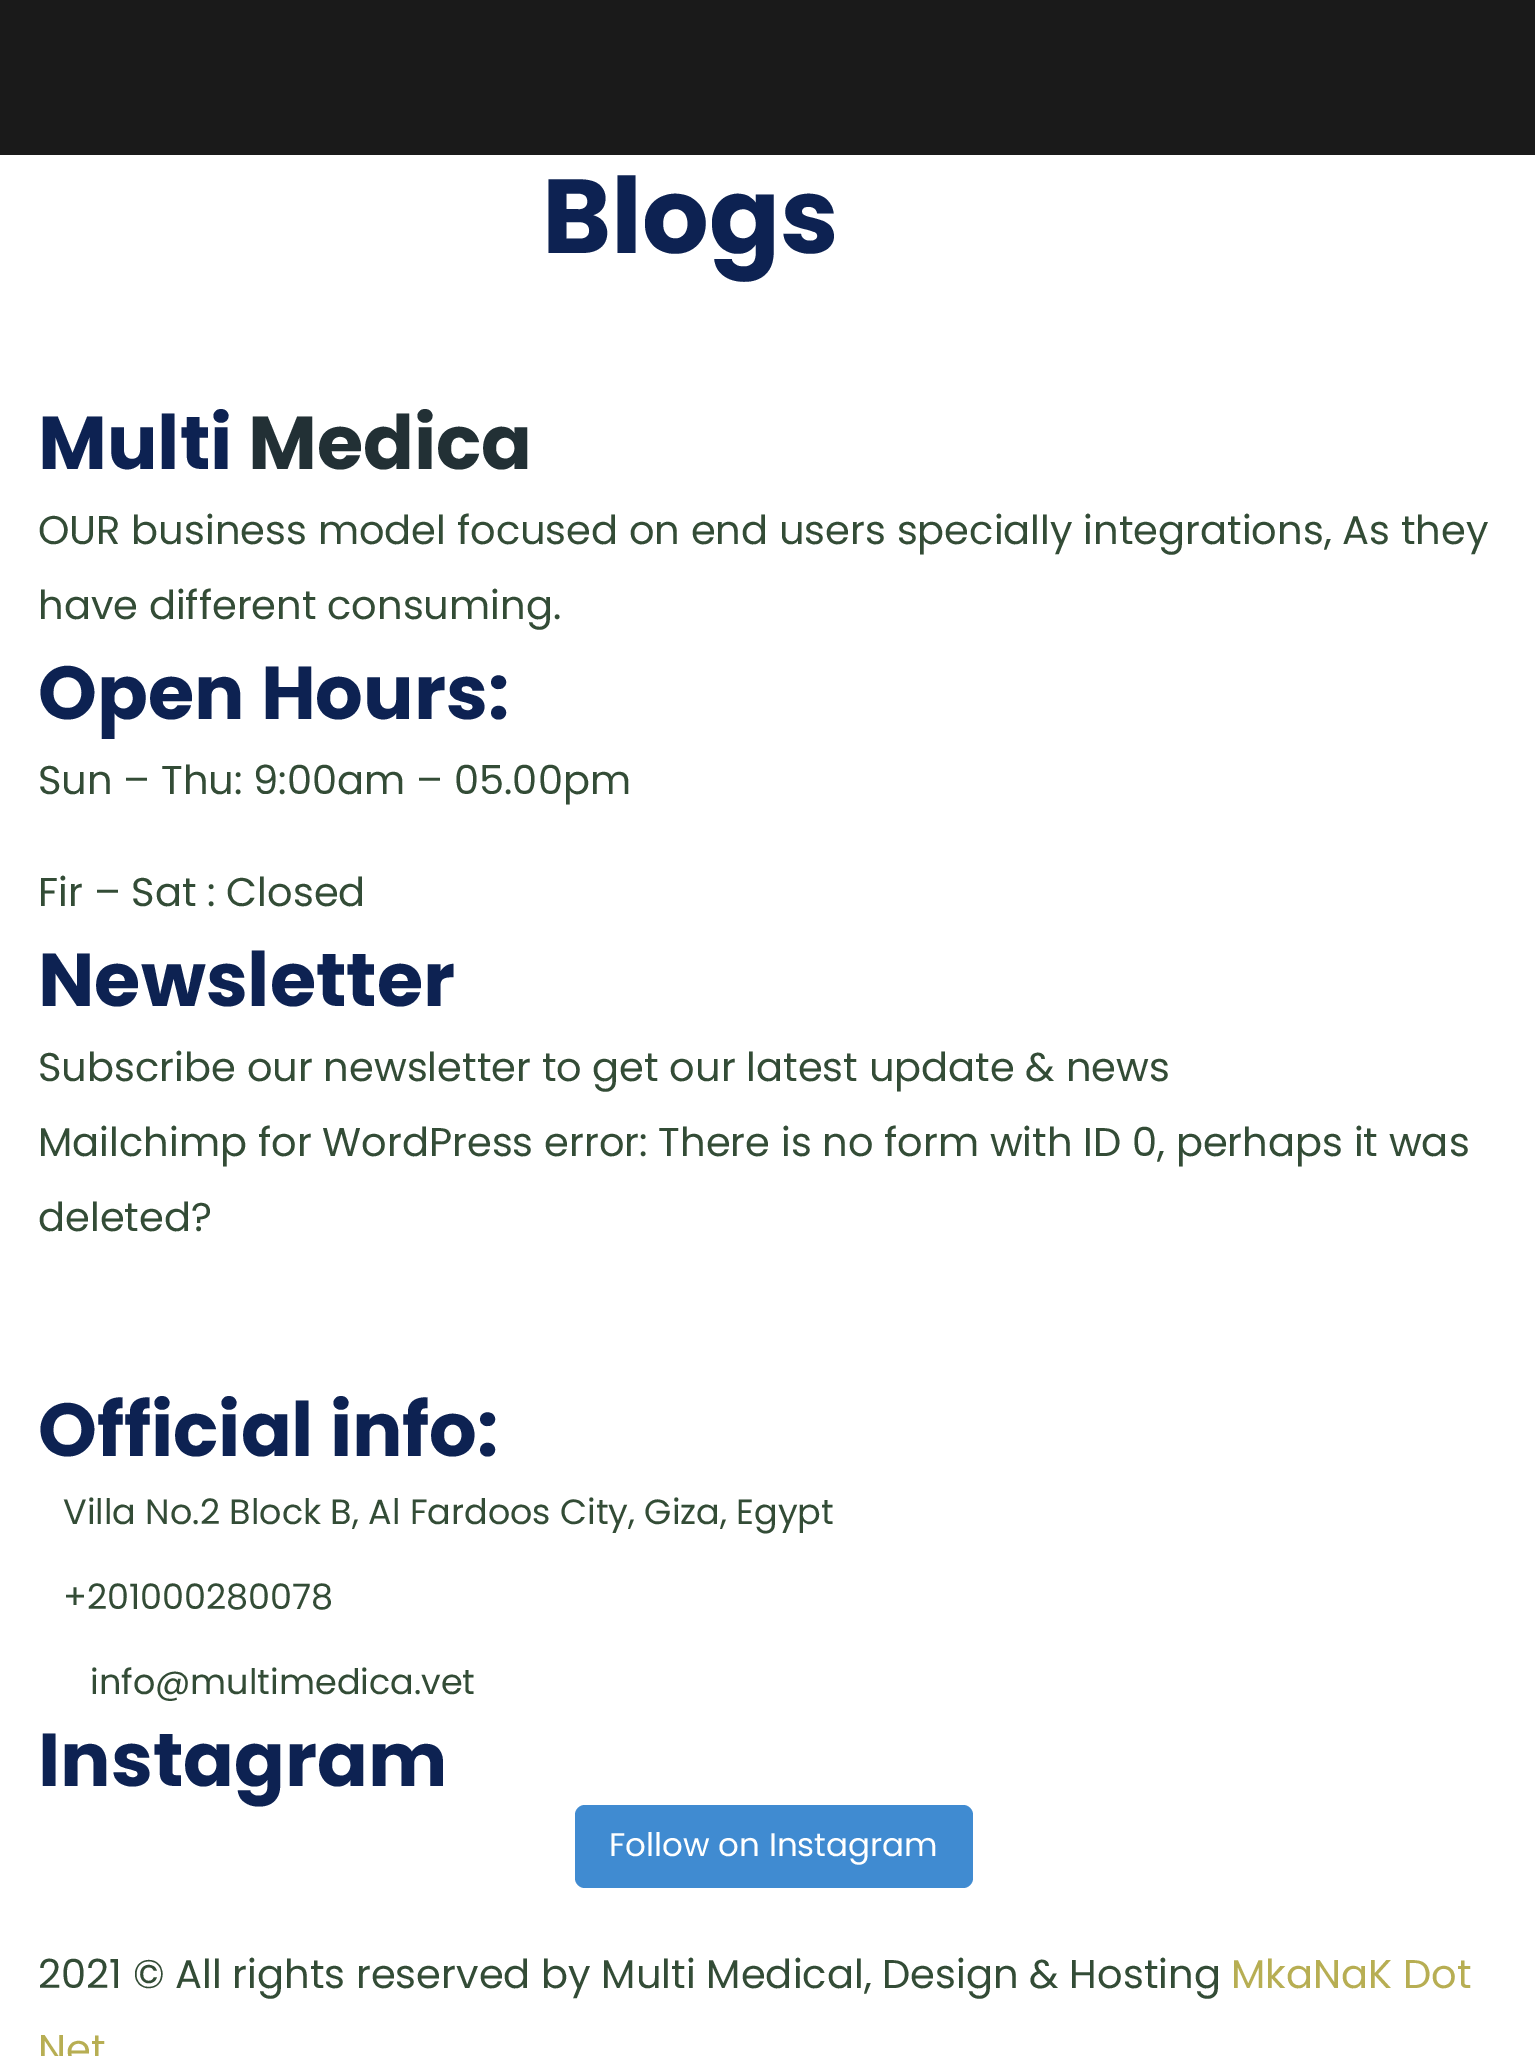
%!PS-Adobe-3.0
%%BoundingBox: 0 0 1535 2056
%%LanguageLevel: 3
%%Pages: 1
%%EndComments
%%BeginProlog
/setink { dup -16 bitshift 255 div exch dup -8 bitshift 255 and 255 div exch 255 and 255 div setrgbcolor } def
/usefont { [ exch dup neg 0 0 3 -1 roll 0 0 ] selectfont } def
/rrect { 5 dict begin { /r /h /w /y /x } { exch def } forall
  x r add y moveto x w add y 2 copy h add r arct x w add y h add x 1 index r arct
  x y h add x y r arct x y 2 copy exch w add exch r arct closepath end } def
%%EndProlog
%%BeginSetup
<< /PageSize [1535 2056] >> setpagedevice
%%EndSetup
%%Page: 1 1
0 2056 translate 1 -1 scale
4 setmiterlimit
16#FFFFFF setink
0 0 1535 2056 rectfill
16#1A1A1A setink
0 0 1535 155 rectfill
/Poppins-Bold 105 usefont
16#0D2252 setink
542 253 moveto (Blogs) show
/Poppins-Bold 75 usefont
38 469 moveto (Multi) show
16#223035 setink
248 469 moveto (Medica) show
/Poppins-Regular 40 usefont
16#334C36 setink
38 544 moveto (OUR business model focused on end users specially integrations, As they) show
38 619 moveto (have different consuming.) show
/Poppins-Bold 75 usefont
16#0D2252 setink
38 719 moveto (Open Hours:) show
/Poppins-Regular 40 usefont
16#334C36 setink
38 794 moveto (Sun – Thu: 9:00am – 05.00pm) show
38 906 moveto (Fir – Sat : Closed) show
/Poppins-Bold 75 usefont
16#0D2252 setink
38 1006 moveto (Newsletter) show
/Poppins-Regular 40 usefont
16#334C36 setink
[
    [(Subscribe our newsletter to get our latest update & news) 38 1081]
    [(Mailchimp for WordPress error: There is no form with ID 0, perhaps it was) 38 1156]
    [(deleted?) 38 1231]
] { aload pop moveto show } forall
/Poppins-Bold 75 usefont
16#0D2252 setink
38 1456 moveto (Official info:) show
/Poppins-Regular 35 usefont
16#334C36 setink
[
    [(Villa No.2 Block B, Al Fardoos City, Giza, Egypt) 63 1524]
    [(+201000280078) 63 1609]
    [(info@multimedica.vet) 90 1694]
] { aload pop moveto show } forall
/Poppins-Bold 75 usefont
16#0D2252 setink
38 1786 moveto (Instagram) show
16#408BD1 setink
575 1805 398 83 10 rrect fill
/Poppins-Regular 32.5 usefont
16#FFFFFF setink
609 1856 moveto (Follow on Instagram) show
/Poppins-Regular 40 usefont
16#334C36 setink
38 1988 moveto (2021 © All rights reserved by Multi Medical, Design & Hosting) show
16#B7AE53 setink
1231 1988 moveto (MkaNaK Dot) show
38 2063 moveto (Net) show
showpage
%%EOF
